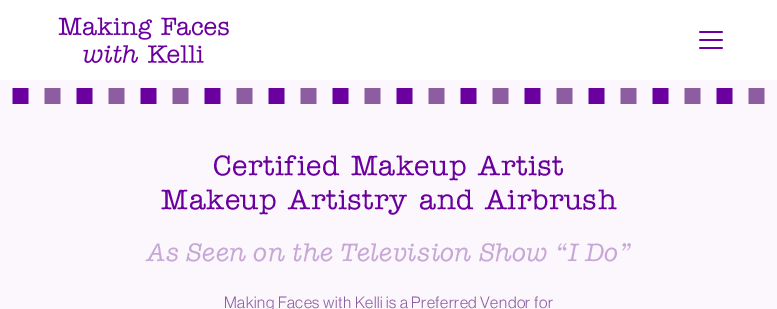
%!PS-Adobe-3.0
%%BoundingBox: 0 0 777 309
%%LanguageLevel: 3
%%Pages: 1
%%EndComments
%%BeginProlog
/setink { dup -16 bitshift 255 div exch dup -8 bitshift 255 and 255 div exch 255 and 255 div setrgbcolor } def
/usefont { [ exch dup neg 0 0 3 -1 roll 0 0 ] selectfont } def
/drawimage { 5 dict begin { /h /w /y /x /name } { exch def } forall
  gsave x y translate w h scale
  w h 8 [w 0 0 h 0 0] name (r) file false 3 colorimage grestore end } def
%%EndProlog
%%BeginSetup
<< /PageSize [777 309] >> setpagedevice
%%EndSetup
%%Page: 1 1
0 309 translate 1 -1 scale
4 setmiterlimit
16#FBF7FC setink
0 0 777 309 rectfill
16#FFFFFF setink
0 0 777 80 rectfill
(img1.raw) 58 17 171 47 drawimage
(img2.raw) 699 31 24 18 drawimage
(img3.raw) 12 88 753 16 drawimage
/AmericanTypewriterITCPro-Medium 28.25 usefont
16#6B009E setink
213 175 moveto 0.5 0 (Certified Makeup Artist) ashow
161 209 moveto 0.5 0 (Makeup Artistry and Airbrush) ashow
/AmericanTypewriterITCPro-MediumItalic 25.5 usefont
16#C7A7D6 setink
147 261 moveto 0.5 0 (As Seen on the Television Show “I Do”) ashow
/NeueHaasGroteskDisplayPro-Regular 16 usefont
16#8D5DA1 setink
224 308 moveto 0.5 0 (Making Faces with Kelli is a Preferred Vendor for) ashow
showpage
%%EOF
